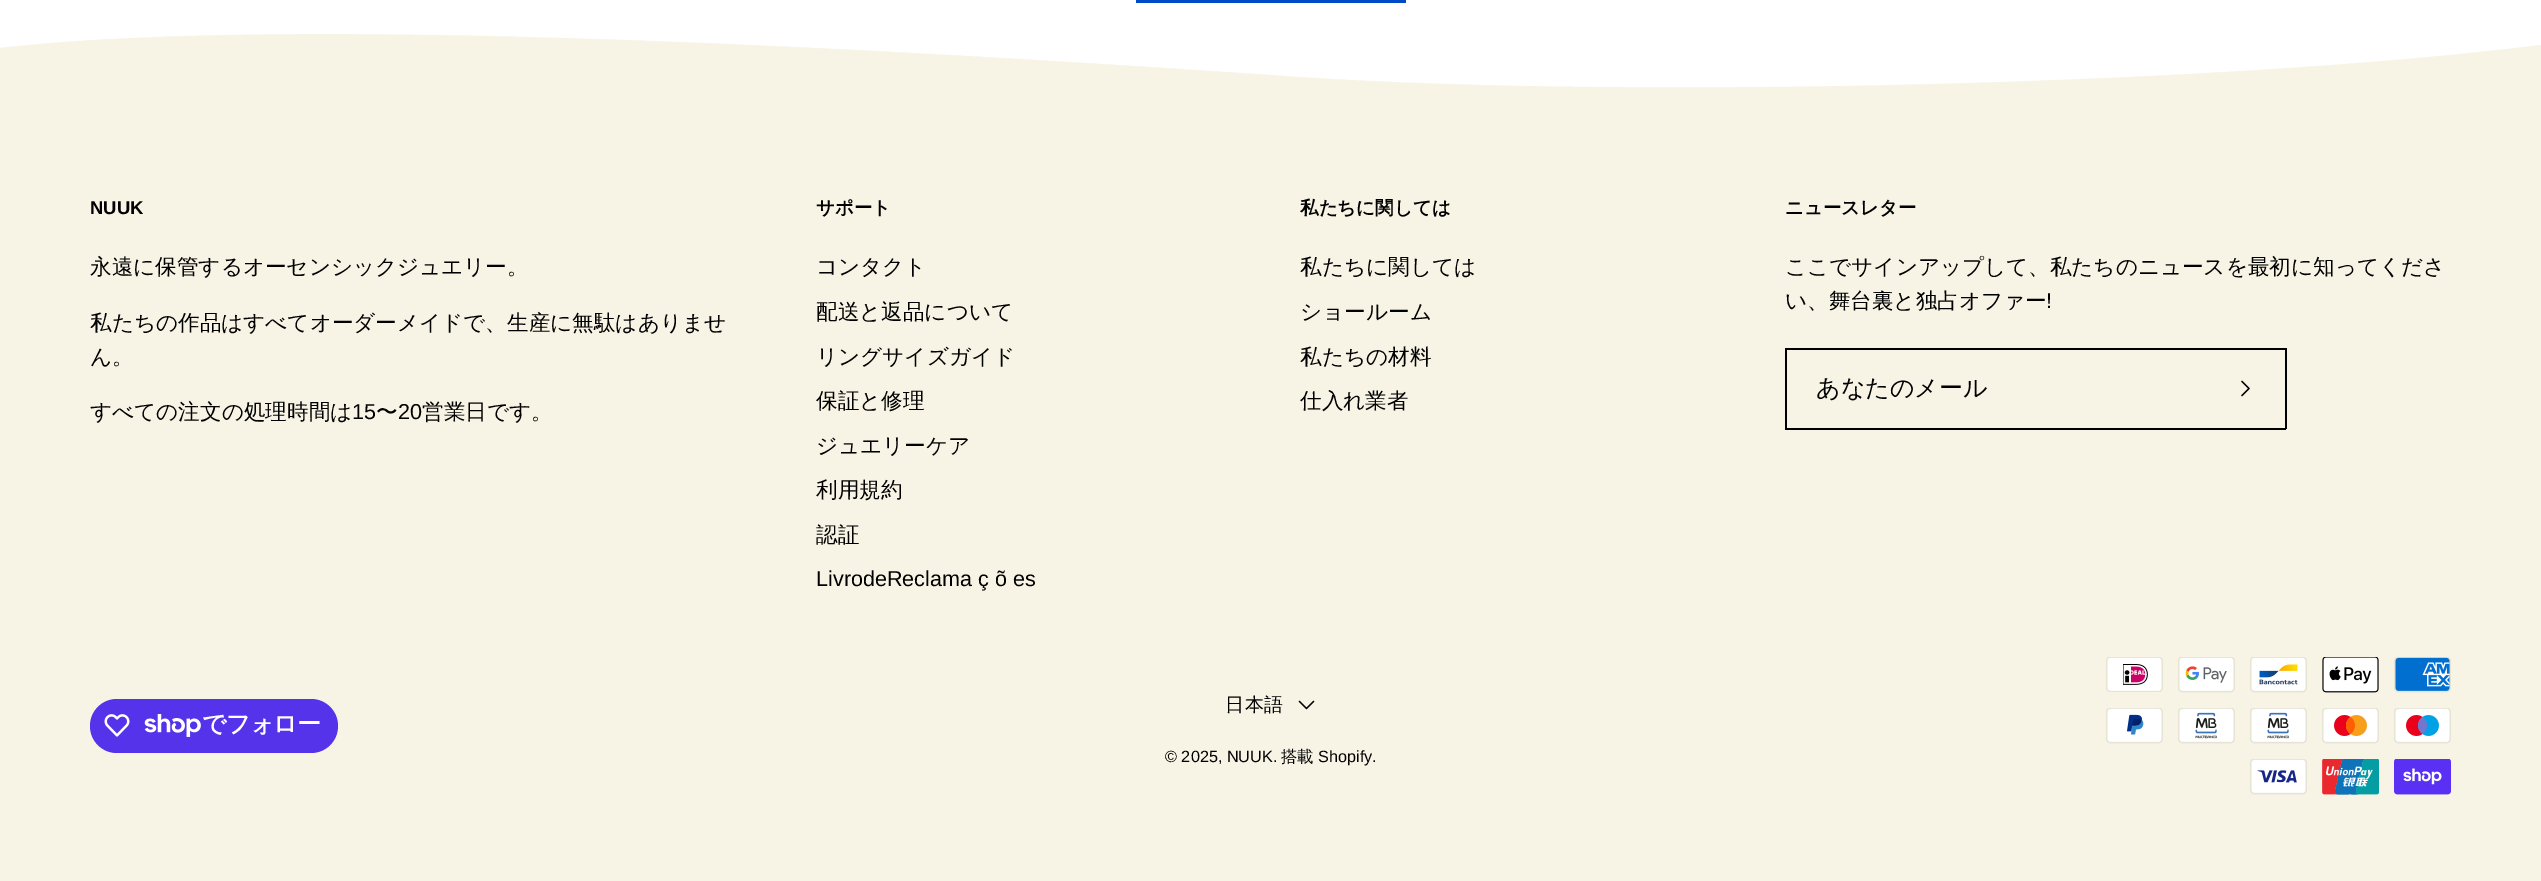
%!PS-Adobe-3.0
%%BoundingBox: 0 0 2541 881
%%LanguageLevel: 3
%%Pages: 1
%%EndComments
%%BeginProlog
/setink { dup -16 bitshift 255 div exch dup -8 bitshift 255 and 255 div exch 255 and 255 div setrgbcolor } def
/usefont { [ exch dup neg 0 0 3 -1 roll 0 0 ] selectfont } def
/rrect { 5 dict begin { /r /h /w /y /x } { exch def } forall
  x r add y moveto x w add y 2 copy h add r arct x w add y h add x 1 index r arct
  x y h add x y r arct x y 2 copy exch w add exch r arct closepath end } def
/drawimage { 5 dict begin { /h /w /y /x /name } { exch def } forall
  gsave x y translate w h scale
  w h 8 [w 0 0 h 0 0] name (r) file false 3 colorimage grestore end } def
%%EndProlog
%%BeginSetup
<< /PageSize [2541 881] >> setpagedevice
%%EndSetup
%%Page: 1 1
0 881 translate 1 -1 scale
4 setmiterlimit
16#F7F4E5 setink
0 0 2541 881 rectfill
16#FFFFFF setink
0 0 2541 88 rectfill
16#004AC7 setink
1136 0 270 3 rectfill
gsave
0 33 2541 86 rectclip
16#F7F4E5 setink
0 48 moveto 290 15 871 48 1270 75 curveto 1597 100 2214 86 2541 45 curveto 2541 120 lineto 0 120 lineto fill
grestore
/LiberationSans-Bold 18.5 usefont
16#000000 setink
90 214 moveto (NUUK) show
/WenQuanYiZenHei-Medium 21.6 usefont
[
    [(永遠に保管するオーセンシックジュエリー。) 90 274]
    [(私たちの作品はすべてオーダーメイドで、生産に無駄はありませ) 90 330]
    [(ん。) 90 364]
    [(すべての注文の処理時間は) 90 419]
] { aload pop moveto show } forall
/LiberationSans-Regular 21.6 usefont
352 419 moveto (15) show
/WenQuanYiZenHei-Medium 21.6 usefont
376 419 moveto (〜) show
/LiberationSans-Regular 21.6 usefont
398 419 moveto (20) show
/WenQuanYiZenHei-Medium 21.6 usefont
422 419 moveto (営業日です。) show
/WenQuanYiZenHei-Bold 18.5 usefont
816 214 moveto (サポート) show
/WenQuanYiZenHei-Medium 21.6 usefont
[
    [(コンタクト) 816 274]
    [(配送と返品について) 816 319]
    [(リングサイズガイド) 816 364]
    [(保証と修理) 816 408]
    [(ジュエリーケア) 816 453]
    [(利用規約) 816 497]
    [(認証) 816 542]
] { aload pop moveto show } forall
/LiberationSans-Regular 21.6 usefont
816 586 moveto (LivrodeReclama ç õ es) show
/WenQuanYiZenHei-Bold 18.5 usefont
1300 214 moveto (私たちに関しては) show
/WenQuanYiZenHei-Medium 21.6 usefont
[
    [(私たちに関しては) 1300 274]
    [(ショールーム) 1300 319]
    [(私たちの材料) 1300 364]
    [(仕入れ業者) 1300 408]
] { aload pop moveto show } forall
/WenQuanYiZenHei-Bold 18.5 usefont
1785 214 moveto (ニュースレター) show
/WenQuanYiZenHei-Medium 21.6 usefont
1785 274 moveto (ここでサインアップして、私たちのニュースを最初に知ってくださ) show
1785 308 moveto (い、舞台裏と独占オファー) show
/LiberationSans-Regular 21.6 usefont
2046 308 moveto (!) show
[
    [1785 348 501 2 16#000000]
    [1785 428 420 2 16#000000]
    [1785 348 2 81 16#000000]
] { aload pop setink rectfill } forall
/WenQuanYiZenHei-Medium 24 usefont
1816 396 moveto (あなたのメール) show
2285 348 2 81 rectfill
2205 428 81 2 rectfill
1.4 setlinewidth
1 setlinecap
1 setlinejoin
2242 381.5 moveto 2249 388.5 lineto 2242 395.5 lineto stroke
16#5433EB setink
90 699 248 54 27 rrect fill
(img1.raw) 104 714 26 23 drawimage
(img2.raw) 144 714 57 23 drawimage
/WenQuanYiZenHei-Bold 24 usefont
16#FFFFFF setink
202 732 moveto -0.75 0 (でフォロー) ashow
/WenQuanYiZenHei-Medium 19 usefont
16#000000 setink
1225 711 moveto 0.5 0 (日本語) ashow
1313.5 701.5 moveto 1306.5 708.5 lineto 1299.5 701.5 lineto stroke
/LiberationSans-Regular 16.25 usefont
1165 762 moveto (© 2025, NUUK.) show
/WenQuanYiZenHei-Medium 16.25 usefont
1281 762 moveto (搭載) show
/LiberationSans-Regular 16.25 usefont
1318 762 moveto (Shopify.) show
(img3.raw) 2106 657 57 35 drawimage
(img4.raw) 2178 657 57 36 drawimage
(img5.raw) 2250 657 57 36 drawimage
(img6.raw) 2322 657 57 36 drawimage
(img7.raw) 2394 657 57 36 drawimage
(img8.raw) 2106 708 57 36 drawimage
(img9.raw) 2178 708 57 36 drawimage
(img9.raw) 2250 708 57 36 drawimage
(img10.raw) 2322 708 57 36 drawimage
(img11.raw) 2394 708 57 36 drawimage
(img12.raw) 2250 759 57 36 drawimage
(img13.raw) 2322 759 57 36 drawimage
(img14.raw) 2394 759 57 36 drawimage
showpage
%%EOF
